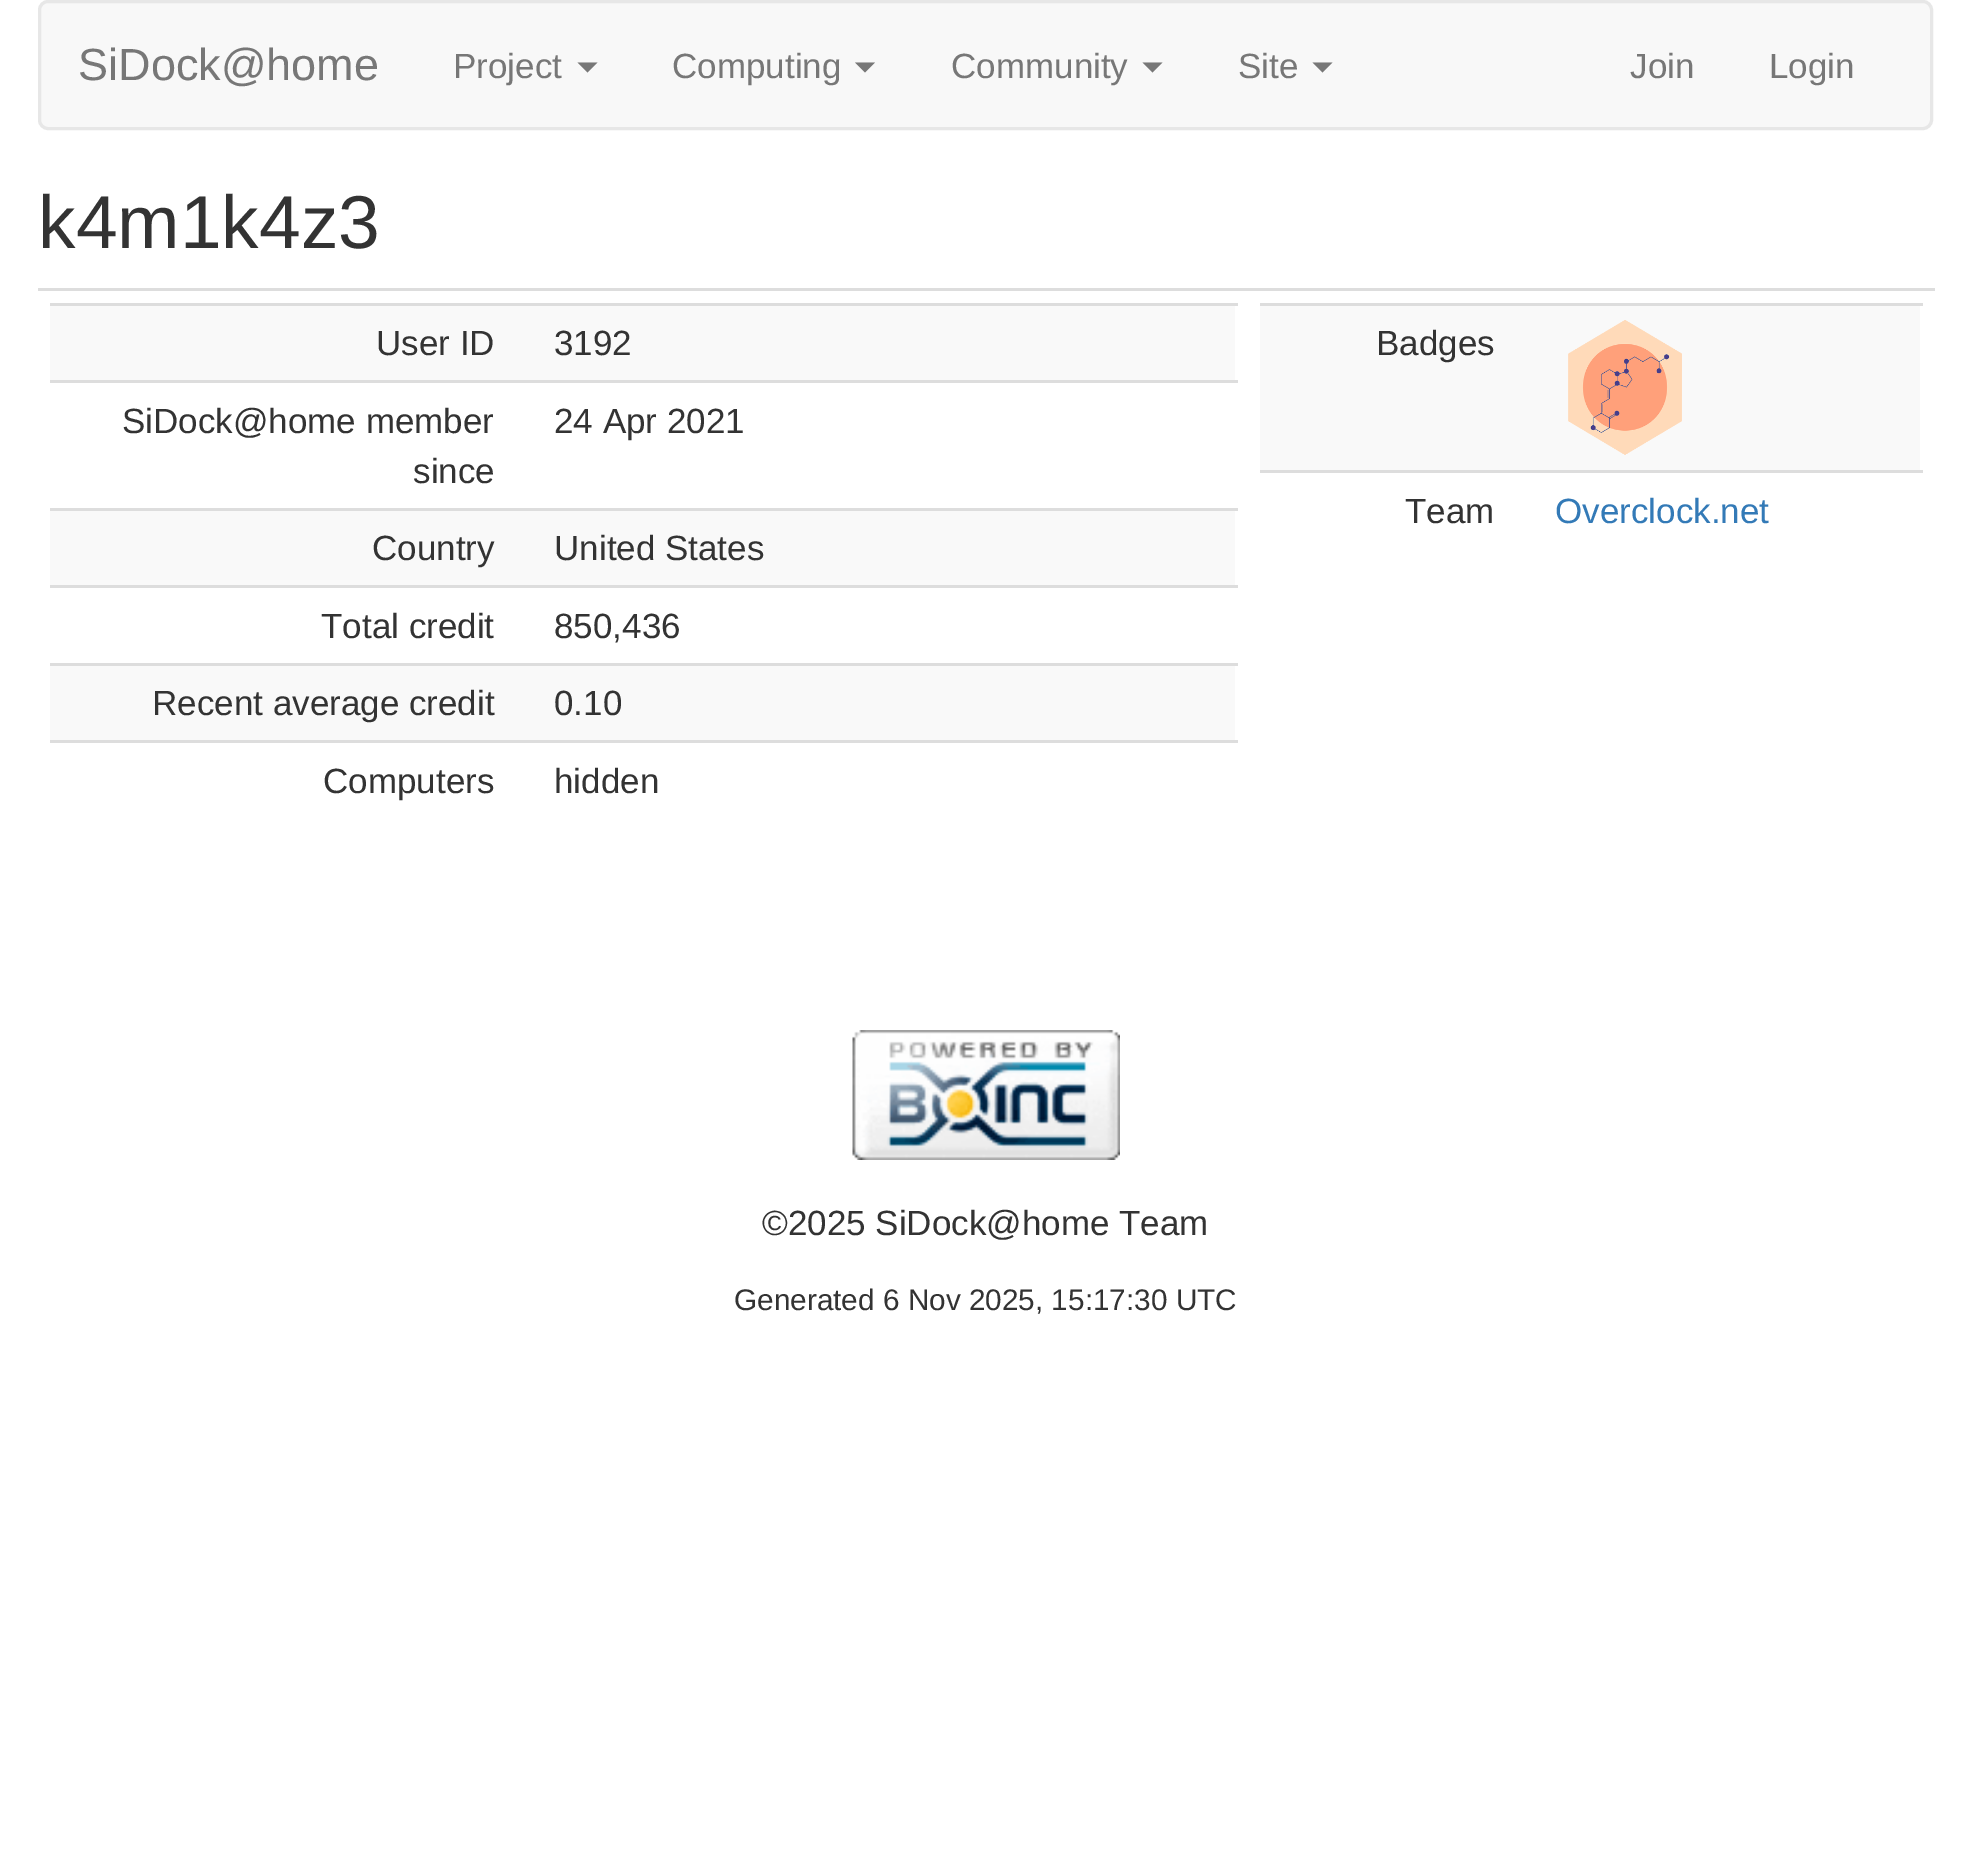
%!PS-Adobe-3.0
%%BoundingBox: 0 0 1968 1851
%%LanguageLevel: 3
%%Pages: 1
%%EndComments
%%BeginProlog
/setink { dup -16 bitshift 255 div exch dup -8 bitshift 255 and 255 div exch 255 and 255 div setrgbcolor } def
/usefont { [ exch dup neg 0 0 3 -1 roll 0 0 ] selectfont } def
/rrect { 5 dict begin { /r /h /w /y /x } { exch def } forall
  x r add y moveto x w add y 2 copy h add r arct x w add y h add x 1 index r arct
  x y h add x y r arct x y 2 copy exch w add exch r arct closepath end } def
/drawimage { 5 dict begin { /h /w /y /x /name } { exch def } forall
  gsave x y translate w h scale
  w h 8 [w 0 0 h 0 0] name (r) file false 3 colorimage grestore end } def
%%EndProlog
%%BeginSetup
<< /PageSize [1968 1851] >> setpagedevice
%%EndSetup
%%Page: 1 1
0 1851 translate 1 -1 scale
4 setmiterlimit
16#FFFFFF setink
0 0 1968 1851 rectfill
16#F8F8F8 setink
39.5 1.5 1892 127 8.5 rrect gsave fill grestore
16#E7E7E7 setink
3 setlinewidth
stroke
/LiberationSans-Regular 45 usefont
16#777777 setink
78 80 moveto (SiDock@home) show
/LiberationSans-Regular 35 usefont
453 78 moveto (Project) show
577.5 62.5 moveto 597.5 62.5 lineto 587.5 72.5 lineto closepath fill
672 78 moveto (Computing) show
855 62.5 moveto 875 62.5 lineto 865 72.5 lineto closepath fill
951 78 moveto (Community) show
1142.5 62.5 moveto 1162.5 62.5 lineto 1152.5 72.5 lineto closepath fill
1238 78 moveto (Site) show
1312.5 62.5 moveto 1332.5 62.5 lineto 1322.5 72.5 lineto closepath fill
1630 78 moveto (Join) show
1769 78 moveto (Login) show
/LiberationSans-Regular 75 usefont
16#333333 setink
38 248 moveto (k4m1k4z3) show
16#F9F9F9 setink
50 306 1185 74 rectfill
/LiberationSans-Regular 35 usefont
16#333333 setink
376 355 moveto (User ID) show
16#DDDDDD setink
50 303 1188 3 rectfill
16#333333 setink
[
    [(3192) 554 355]
    [(SiDock@home member) 122 433]
    [(since) 413 483]
] { aload pop moveto show } forall
16#DDDDDD setink
50 380 1188 3 rectfill
16#333333 setink
554 433 moveto (24 Apr 2021) show
16#F9F9F9 setink
50 511 1185 74 rectfill
16#333333 setink
372 560 moveto (Country) show
16#DDDDDD setink
50 508 1188 3 rectfill
16#333333 setink
554 560 moveto (United States) show
321 638 moveto (Total credit) show
16#DDDDDD setink
50 585 1188 3 rectfill
16#333333 setink
554 638 moveto (850,436) show
16#F9F9F9 setink
50 666 1185 74 rectfill
16#333333 setink
152 715 moveto (Recent average credit) show
16#DDDDDD setink
50 663 1188 3 rectfill
16#333333 setink
554 715 moveto (0.10) show
323 793 moveto (Computers) show
16#DDDDDD setink
50 740 1188 3 rectfill
16#333333 setink
554 793 moveto (hidden) show
[
    [38 288 1897 3 16#DDDDDD]
    [1260 306 660 164 16#F9F9F9]
    [1260 303 663 3 16#DDDDDD]
] { aload pop setink rectfill } forall
(img1.raw) 1568 320 114 135 drawimage
16#333333 setink
1376 355 moveto (Badges) show
1405 523 moveto (Team) show
16#DDDDDD setink
1260 470 663 3 rectfill
16#337AB7 setink
1555 523 moveto (Overclock.net) show
(img2.raw) 852 1030 268 130 drawimage
16#333333 setink
762 1235 moveto (©2025 SiDock@home Team) show
/LiberationSans-Regular 29.75 usefont
734 1310 moveto (Generated 6 Nov 2025, 15:17:30 UTC) show
showpage
%%EOF
